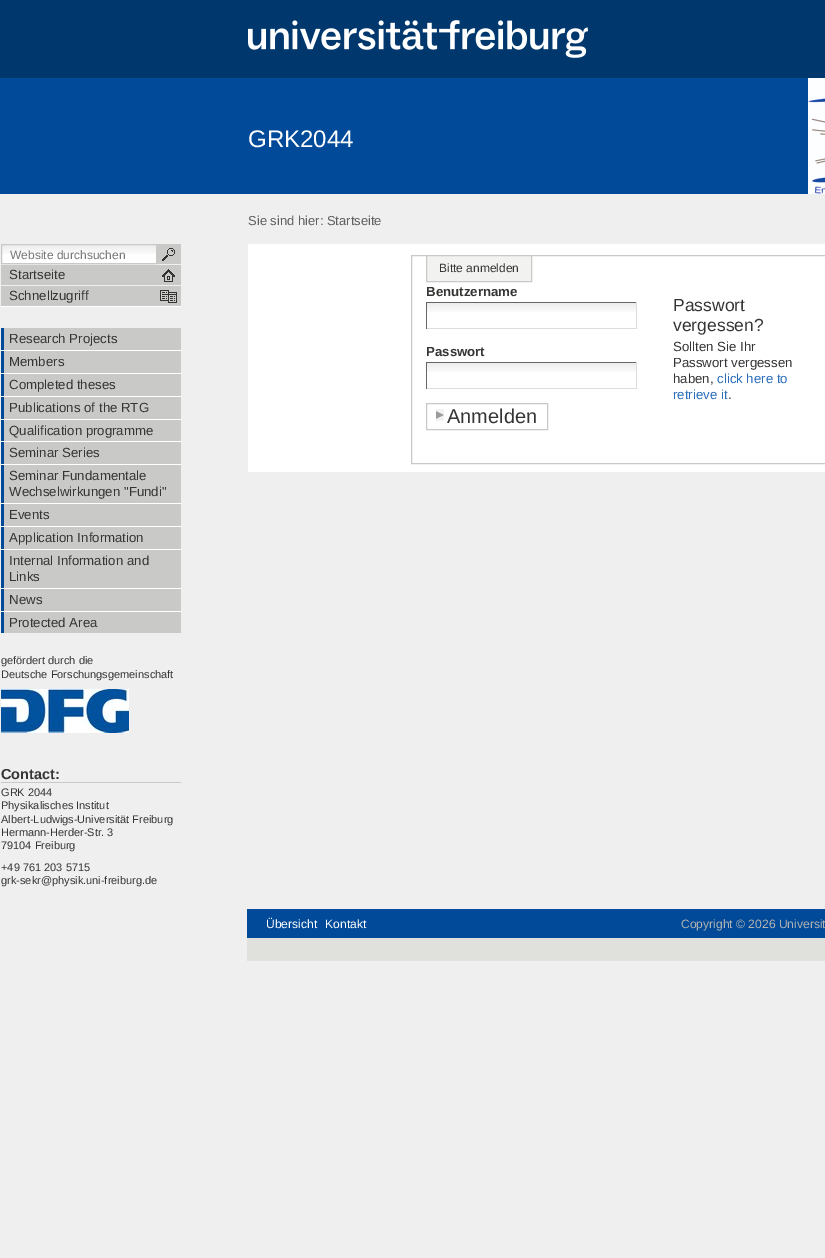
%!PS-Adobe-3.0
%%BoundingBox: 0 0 825 1258
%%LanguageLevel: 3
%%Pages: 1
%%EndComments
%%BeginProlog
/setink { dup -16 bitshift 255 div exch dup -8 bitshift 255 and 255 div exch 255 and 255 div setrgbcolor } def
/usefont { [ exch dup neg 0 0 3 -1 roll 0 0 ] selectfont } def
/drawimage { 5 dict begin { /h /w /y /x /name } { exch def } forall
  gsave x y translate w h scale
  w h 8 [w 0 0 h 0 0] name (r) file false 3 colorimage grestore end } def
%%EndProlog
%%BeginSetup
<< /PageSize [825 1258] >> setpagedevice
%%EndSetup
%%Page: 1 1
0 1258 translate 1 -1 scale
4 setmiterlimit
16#EFEFEF setink
0 0 825 1258 rectfill
16#00376D setink
0 0 825 78 rectfill
(img1.raw) 248 20 340 38 drawimage
16#004A99 setink
0 78 808 116 rectfill
/LiberationSans-Regular 24 usefont
16#FFFFFF setink
248 147 moveto (GRK2044) show
(img2.raw) 808 78 17 116 drawimage
/LiberationSans-Regular 13 usefont
16#606060 setink
248 225 moveto (Sie sind hier: Startseite) show
16#FFFFFF setink
2 254 154 9 rectfill
(img3.raw) 2 245 154 9 drawimage
16#C9CAC8 setink
1.5 244.5 155 19 rectstroke
/LiberationSans-Regular 12 usefont
16#747678 setink
10 259 moveto (Website durchsuchen) show
16#C9CAC8 setink
157 244 24 20 rectfill
(img4.raw) 162 248 13 13 drawimage
1 265 180 20 rectfill
(img5.raw) 162 269 13 13 drawimage
/LiberationSans-Regular 13.25 usefont
16#363534 setink
9 279 moveto (Startseite) show
16#C9CAC8 setink
1 286 180 20 rectfill
(img6.raw) 160 290 17 13 drawimage
16#FFFFFF setink
1 306 180 1 rectfill
16#363534 setink
9 300 moveto (Schnellzugriff) show
[
    [4 328 177 22 16#C9CAC8]
    [1 328 3 305 16#004A99]
    [1 350 180 1 16#FFFFFF]
] { aload pop setink rectfill } forall
16#363534 setink
9 343 moveto (Research Projects) show
16#C9CAC8 setink
4 351 177 22 rectfill
16#FFFFFF setink
1 373 180 1 rectfill
16#363534 setink
9 366 moveto (Members) show
16#C9CAC8 setink
4 374 177 22 rectfill
16#FFFFFF setink
1 396 180 1 rectfill
16#363534 setink
9 389 moveto (Completed theses) show
16#C9CAC8 setink
4 397 177 22 rectfill
16#FFFFFF setink
1 419 180 1 rectfill
16#363534 setink
9 412 moveto (Publications of the RTG) show
16#C9CAC8 setink
4 420 177 21 rectfill
16#FFFFFF setink
1 441 180 1 rectfill
16#363534 setink
9 435 moveto (Qualification programme) show
16#C9CAC8 setink
4 442 177 22 rectfill
16#FFFFFF setink
1 464 180 1 rectfill
16#363534 setink
9 457 moveto (Seminar Series) show
16#C9CAC8 setink
4 465 177 38 rectfill
16#FFFFFF setink
1 503 180 1 rectfill
16#363534 setink
9 480 moveto (Seminar Fundamentale) show
9 496 moveto (Wechselwirkungen "Fundi") show
16#C9CAC8 setink
4 504 177 22 rectfill
16#FFFFFF setink
1 526 180 1 rectfill
16#363534 setink
9 519 moveto (Events) show
16#C9CAC8 setink
4 527 177 22 rectfill
16#FFFFFF setink
1 549 180 1 rectfill
16#363534 setink
9 542 moveto (Application Information) show
16#C9CAC8 setink
4 550 177 38 rectfill
16#FFFFFF setink
1 588 180 1 rectfill
16#363534 setink
9 565 moveto (Internal Information and) show
9 581 moveto (Links) show
16#C9CAC8 setink
4 589 177 22 rectfill
16#FFFFFF setink
1 611 180 1 rectfill
16#363534 setink
9 604 moveto (News) show
16#C9CAC8 setink
4 612 177 21 rectfill
16#363534 setink
9 627 moveto (Protected Area) show
/LiberationSans-Regular 11 usefont
1 664 moveto (gefördert durch die) show
1 678 moveto (Deutsche Forschungsgemeinschaft) show
(img7.raw) 1 689 128 44 drawimage
16#C9CAC8 setink
1 782 180 1 rectfill
/LiberationSans-Bold 14.5 usefont
16#363534 setink
1 779 moveto (Contact:) show
/LiberationSans-Regular 11 usefont
[
    [(GRK 2044) 1 796]
    [(Physikalisches Institut) 1 809]
    [(Albert-Ludwigs-Universität Freiburg) 1 823]
    [(Hermann-Herder-Str. 3) 1 836]
    [(79104 Freiburg) 1 849]
    [(+49 761 203 5715) 1 871]
    [(grk-sekr@physik.uni-freiburg.de) 1 884]
] { aload pop moveto show } forall
16#FFFFFF setink
248 244 577 228 rectfill
16#C9CAC8 setink
411.5 255.5 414 208 rectstroke
16#F2F3F1 setink
426.5 255.5 moveto 531.5 255.5 lineto 531.5 281.5 lineto 426.5 281.5 lineto closepath gsave fill grestore
16#C9CAC8 setink
stroke
/LiberationSans-Regular 12 usefont
16#363534 setink
439 272 moveto (Bitte anmelden) show
/LiberationSans-Bold 13.25 usefont
426 296 moveto (Benutzername) show
(img8.raw) 427 303 209 9 drawimage
[
    [426 302 211 1 16#666666]
    [636 302 1 27 16#DDDDDD]
    [426 328 211 1 16#DDDDDD]
    [426 302 1 27 16#666666]
] { aload pop setink rectfill } forall
16#363534 setink
426 356 moveto (Passwort) show
(img8.raw) 427 363 209 9 drawimage
[
    [426 362 211 1 16#666666]
    [636 362 1 27 16#DDDDDD]
    [426 388 211 1 16#DDDDDD]
    [426 362 1 27 16#666666]
] { aload pop setink rectfill } forall
/LiberationSans-Regular 17.5 usefont
16#363534 setink
673 311 moveto (Passwort) show
673 331 moveto (vergessen?) show
/LiberationSans-Regular 13.25 usefont
[
    [(Sollten Sie Ihr) 673 351]
    [(Passwort vergessen) 673 367]
    [(haben,) 673 383]
] { aload pop moveto show } forall
16#2A6EBB setink
717 383 moveto (click here to) show
673 399 moveto (retrieve it) show
16#363534 setink
728 399 moveto (.) show
(img9.raw) 436 409 8 12 drawimage
16#C9CAC8 setink
426.5 403.5 121 26 rectstroke
/LiberationSans-Regular 20 usefont
16#363534 setink
447 423 moveto (Anmelden) show
16#004A99 setink
247 909 578 29 rectfill
/LiberationSans-Regular 12.1 usefont
16#FFFFFF setink
266 928 moveto (Übersicht) show
325 928 moveto (Kontakt) show
16#B2B4B3 setink
681 928 moveto (Copyright © 2026 Universit) show
16#E0E1DD setink
247 938 578 23 rectfill
showpage
%%EOF
